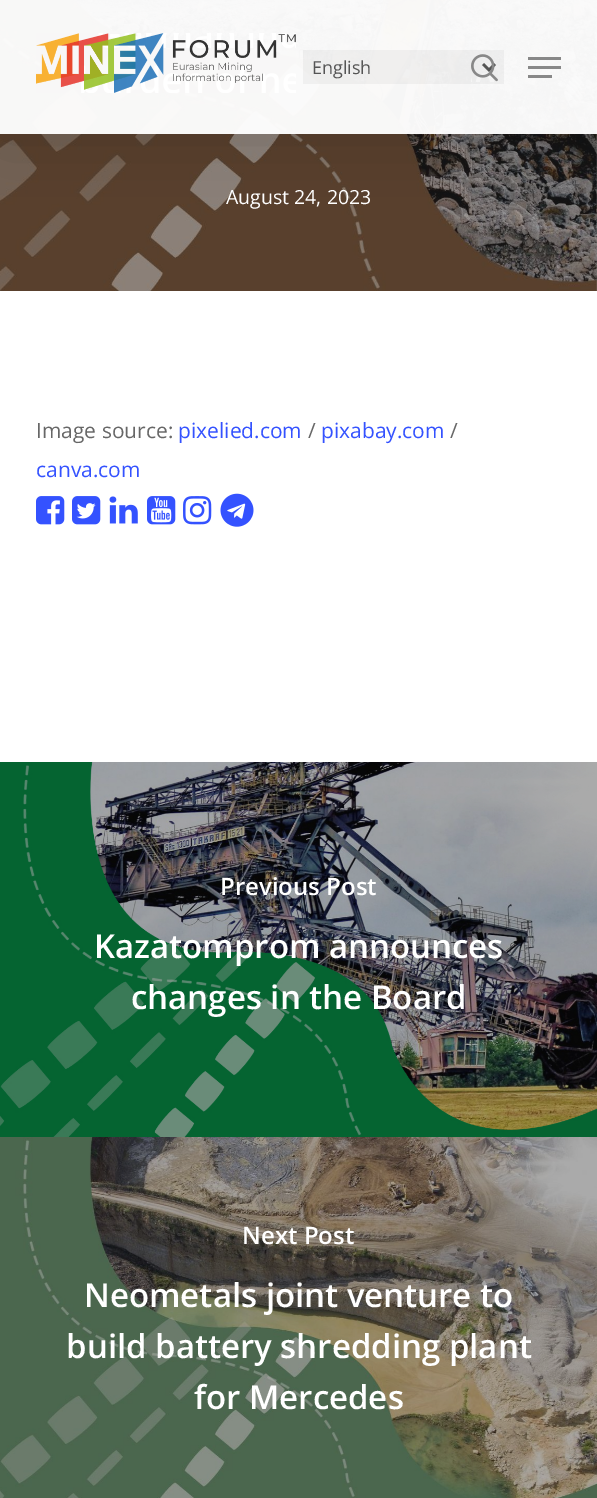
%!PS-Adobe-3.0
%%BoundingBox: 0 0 597 1498
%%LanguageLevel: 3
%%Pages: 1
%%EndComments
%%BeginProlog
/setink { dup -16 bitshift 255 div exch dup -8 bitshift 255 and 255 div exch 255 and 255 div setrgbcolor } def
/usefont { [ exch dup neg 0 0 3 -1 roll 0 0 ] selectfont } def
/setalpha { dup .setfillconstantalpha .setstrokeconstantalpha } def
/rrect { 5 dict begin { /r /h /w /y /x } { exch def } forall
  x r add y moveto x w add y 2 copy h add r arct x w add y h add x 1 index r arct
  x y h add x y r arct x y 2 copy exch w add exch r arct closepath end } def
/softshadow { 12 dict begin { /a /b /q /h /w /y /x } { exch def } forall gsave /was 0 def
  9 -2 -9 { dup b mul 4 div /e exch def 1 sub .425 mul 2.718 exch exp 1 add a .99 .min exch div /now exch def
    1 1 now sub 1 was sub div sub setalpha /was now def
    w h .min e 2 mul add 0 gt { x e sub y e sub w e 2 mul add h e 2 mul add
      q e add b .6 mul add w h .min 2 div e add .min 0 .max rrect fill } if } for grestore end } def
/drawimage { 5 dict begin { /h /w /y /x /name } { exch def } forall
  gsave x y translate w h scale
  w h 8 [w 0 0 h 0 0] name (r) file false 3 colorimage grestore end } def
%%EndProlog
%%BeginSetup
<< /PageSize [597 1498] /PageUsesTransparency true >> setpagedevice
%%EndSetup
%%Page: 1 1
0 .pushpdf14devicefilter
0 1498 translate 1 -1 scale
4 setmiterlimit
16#FFFFFF setink
0 0 597 1498 rectfill
(img3.raw) 0 0 597 291 drawimage
gsave
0 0 moveto 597 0 lineto 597 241 lineto 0 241 lineto closepath 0 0 moveto 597 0 lineto 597 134 lineto 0 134 lineto closepath eoclip newpath
16#000000 setink
0 5 597 133 0 34 0.15 softshadow
grestore
0.96 setalpha
0 0 597 134 rectfill
1 setalpha
(img1.raw) 36 33 260 60 drawimage
0.04 setalpha
16#000000 setink
303 50 201 34 rectfill
1 setalpha
16#555555 setink
3 setlinewidth
483 64 moveto 489 70 lineto 495 64 lineto stroke
/OpenSans-Regular 18 usefont
312 74 moveto (English) show
(img2.raw) 471 54 27 28 drawimage
[
    [528 57 33 3 16#888888]
    [528 75 24 3 16#888888]
    [528 66 33 3 16#888888]
] { aload pop setink rectfill } forall
/OpenSans-Regular 19.5 usefont
16#FFFFFF setink
226 204 moveto (August 24, 2023) show
/OpenSans-Regular 21 usefont
16#676767 setink
36 438 moveto (Image source:) show
16#3452FF setink
178 438 moveto (pixelied.com) show
16#676767 setink
308 438 moveto (/) show
16#3452FF setink
321 438 moveto (pixabay.com) show
16#676767 setink
450 438 moveto (/) show
16#3452FF setink
36 477 moveto (canva.com) show
(img4.raw) 36 496 29 29 drawimage
(img5.raw) 72 496 29 29 drawimage
(img6.raw) 109 496 29 28 drawimage
(img7.raw) 147 496 29 29 drawimage
(img8.raw) 183 496 29 29 drawimage
(img9.raw) 220 493 34 34 drawimage
(img10.raw) 0 762 597 375 drawimage
/OpenSans-SemiBold 24 usefont
16#FFFFFF setink
220 895 moveto (Previous Post) show
/OpenSans-SemiBold 33 usefont
94 958 moveto (Kazatomprom announces) show
131 1009 moveto (changes in the Board) show
(img11.raw) 0 1137 597 361 drawimage
/OpenSans-SemiBold 24 usefont
242 1244 moveto (Next Post) show
/OpenSans-SemiBold 33 usefont
[
    [(Neometals joint venture to) 84 1307]
    [(build battery shredding plant) 66 1358]
    [(for Mercedes) 194 1409]
] { aload pop moveto show } forall
.poppdf14devicefilter showpage
%%EOF
